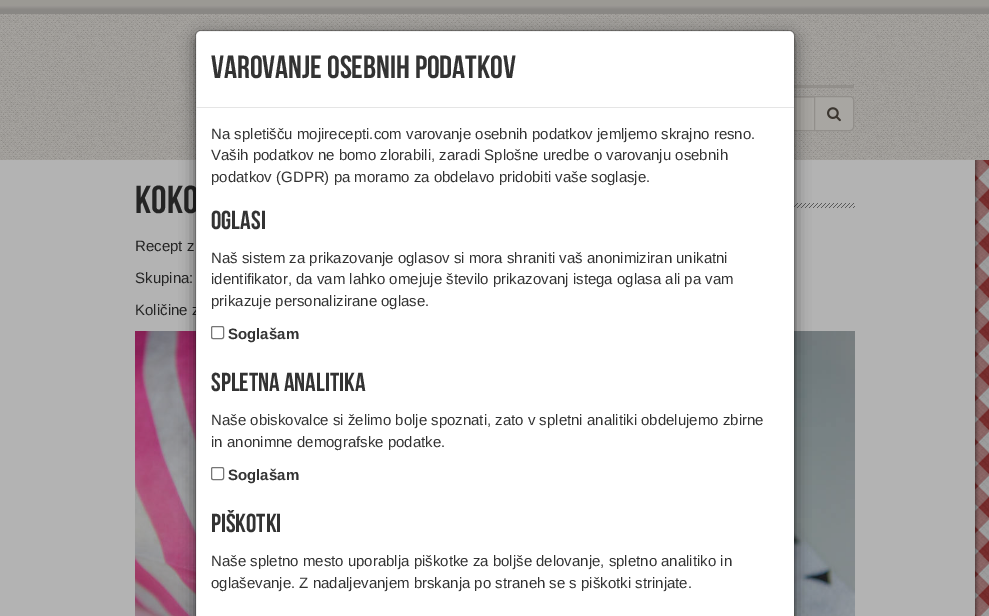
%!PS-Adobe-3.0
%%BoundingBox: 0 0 989 616
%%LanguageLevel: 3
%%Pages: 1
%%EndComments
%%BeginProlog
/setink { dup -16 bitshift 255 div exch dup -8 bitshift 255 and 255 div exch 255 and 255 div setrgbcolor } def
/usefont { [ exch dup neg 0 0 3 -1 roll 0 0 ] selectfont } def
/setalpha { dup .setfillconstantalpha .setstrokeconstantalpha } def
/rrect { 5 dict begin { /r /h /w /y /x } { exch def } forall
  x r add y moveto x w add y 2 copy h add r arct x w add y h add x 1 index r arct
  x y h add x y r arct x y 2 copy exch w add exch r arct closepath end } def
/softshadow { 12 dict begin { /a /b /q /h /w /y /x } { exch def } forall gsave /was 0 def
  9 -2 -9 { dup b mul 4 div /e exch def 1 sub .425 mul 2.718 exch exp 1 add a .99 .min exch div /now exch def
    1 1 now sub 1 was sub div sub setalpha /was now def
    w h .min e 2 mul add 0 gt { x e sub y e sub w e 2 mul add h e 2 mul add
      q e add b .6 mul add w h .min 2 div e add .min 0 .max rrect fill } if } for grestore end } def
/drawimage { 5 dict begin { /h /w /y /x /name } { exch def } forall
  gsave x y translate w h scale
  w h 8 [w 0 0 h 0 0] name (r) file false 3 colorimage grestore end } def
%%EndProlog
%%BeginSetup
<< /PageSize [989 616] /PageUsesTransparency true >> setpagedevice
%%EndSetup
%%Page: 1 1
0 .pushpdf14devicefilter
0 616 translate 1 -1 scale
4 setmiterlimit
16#FFFFFF setink
0 0 989 616 rectfill
(img1.raw) 0 14 989 146 drawimage
(img2.raw) 0 0 989 14 drawimage
16#928F8B setink
794 85 60 3 rectfill
16#A8A6A2 setink
794 98 20 32 rectfill
16#9B9996 setink
688 98 moveto 814 98 lineto 814 97 lineto 688 97 lineto 686 97 685 99 685 101 curveto 685 99 686 98 688 98 curveto closepath fill
16#928F8B setink
684.5 96.5 130 34 rectstroke
16#A8A6A2 setink
814.5 96.5 moveto 850 96.5 lineto 852 96.5 853.5 98 853.5 100 curveto 853.5 127 lineto 853.5 129 852 130.5 850 130.5 curveto 814.5 130.5 lineto closepath gsave fill grestore
16#928F8B setink
stroke
(img3.raw) 827 107 14 15 drawimage
16#B3B3B3 setink
0 160 975 456 rectfill
(img4.raw) 975 160 14 456 drawimage
(img5.raw) 794 203 61 5 drawimage
/BebasNeue-Regular 39 usefont
16#242424 setink
135 213 moveto (Koko) show
/LiberationSans-Regular 15 usefont
[
    [(Recept z) 135 251]
    [(Skupina:) 135 283]
    [(Količine z) 135 315]
] { aload pop moveto show } forall
(img6.raw) 135 331 720 285 drawimage
16#000000 setink
195 35 600 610 6 7.5 0.5 softshadow
16#FFFFFF setink
201 31 moveto 789 31 lineto 792 31 794 33 794 36 curveto 794 616 lineto 196 616 lineto 196 36 lineto 196 33 198 31 201 31 curveto closepath fill
0.2 setalpha
16#000000 setink
195.5 30.5 599 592 5.5 rrect stroke
1 setalpha
16#E5E5E5 setink
196 107 598 1 rectfill
/BebasNeue-Regular 32 usefont
16#333333 setink
211 78 moveto (Varovanje osebnih podatkov) show
/LiberationSans-Regular 15 usefont
[
    [(Na spletišču mojirecepti.com varovanje osebnih podatkov jemljemo skrajno resno.) 211 139]
    [(Vaših podatkov ne bomo zlorabili, zaradi Splošne uredbe o varovanju osebnih) 211 160]
    [(podatkov \(GDPR\) pa moramo za obdelavo pridobiti vaše soglasje.) 211 182]
] { aload pop moveto show } forall
/BebasNeue-Regular 26 usefont
211 229 moveto (Oglasi) show
/LiberationSans-Regular 15 usefont
[
    [(Naš sistem za prikazovanje oglasov si mora shraniti vaš anonimiziran unikatni) 211 263]
    [(identifikator, da vam lahko omejuje število prikazovanj istega oglasa ali pa vam) 211 284]
    [(prikazuje personalizirane oglase.) 211 306]
] { aload pop moveto show } forall
16#767676 setink
211.5 326.5 12 12 1.5 rrect stroke
/LiberationSans-Bold 15 usefont
16#333333 setink
228 339 moveto (Soglašam) show
/BebasNeue-Regular 26 usefont
211 391 moveto (Spletna analitika) show
/LiberationSans-Regular 15 usefont
211 425 moveto (Naše obiskovalce si želimo bolje spoznati, zato v spletni analitiki obdelujemo zbirne) show
211 447 moveto (in anonimne demografske podatke.) show
16#767676 setink
211.5 467.5 12 12 1.5 rrect stroke
/LiberationSans-Bold 15 usefont
16#333333 setink
228 480 moveto (Soglašam) show
/BebasNeue-Regular 26 usefont
211 532 moveto (Piškotki) show
/LiberationSans-Regular 15 usefont
211 566 moveto (Naše spletno mesto uporablja piškotke za boljše delovanje, spletno analitiko in) show
211 588 moveto (oglaševanje. Z nadaljevanjem brskanja po straneh se s piškotki strinjate.) show
.poppdf14devicefilter showpage
%%EOF
